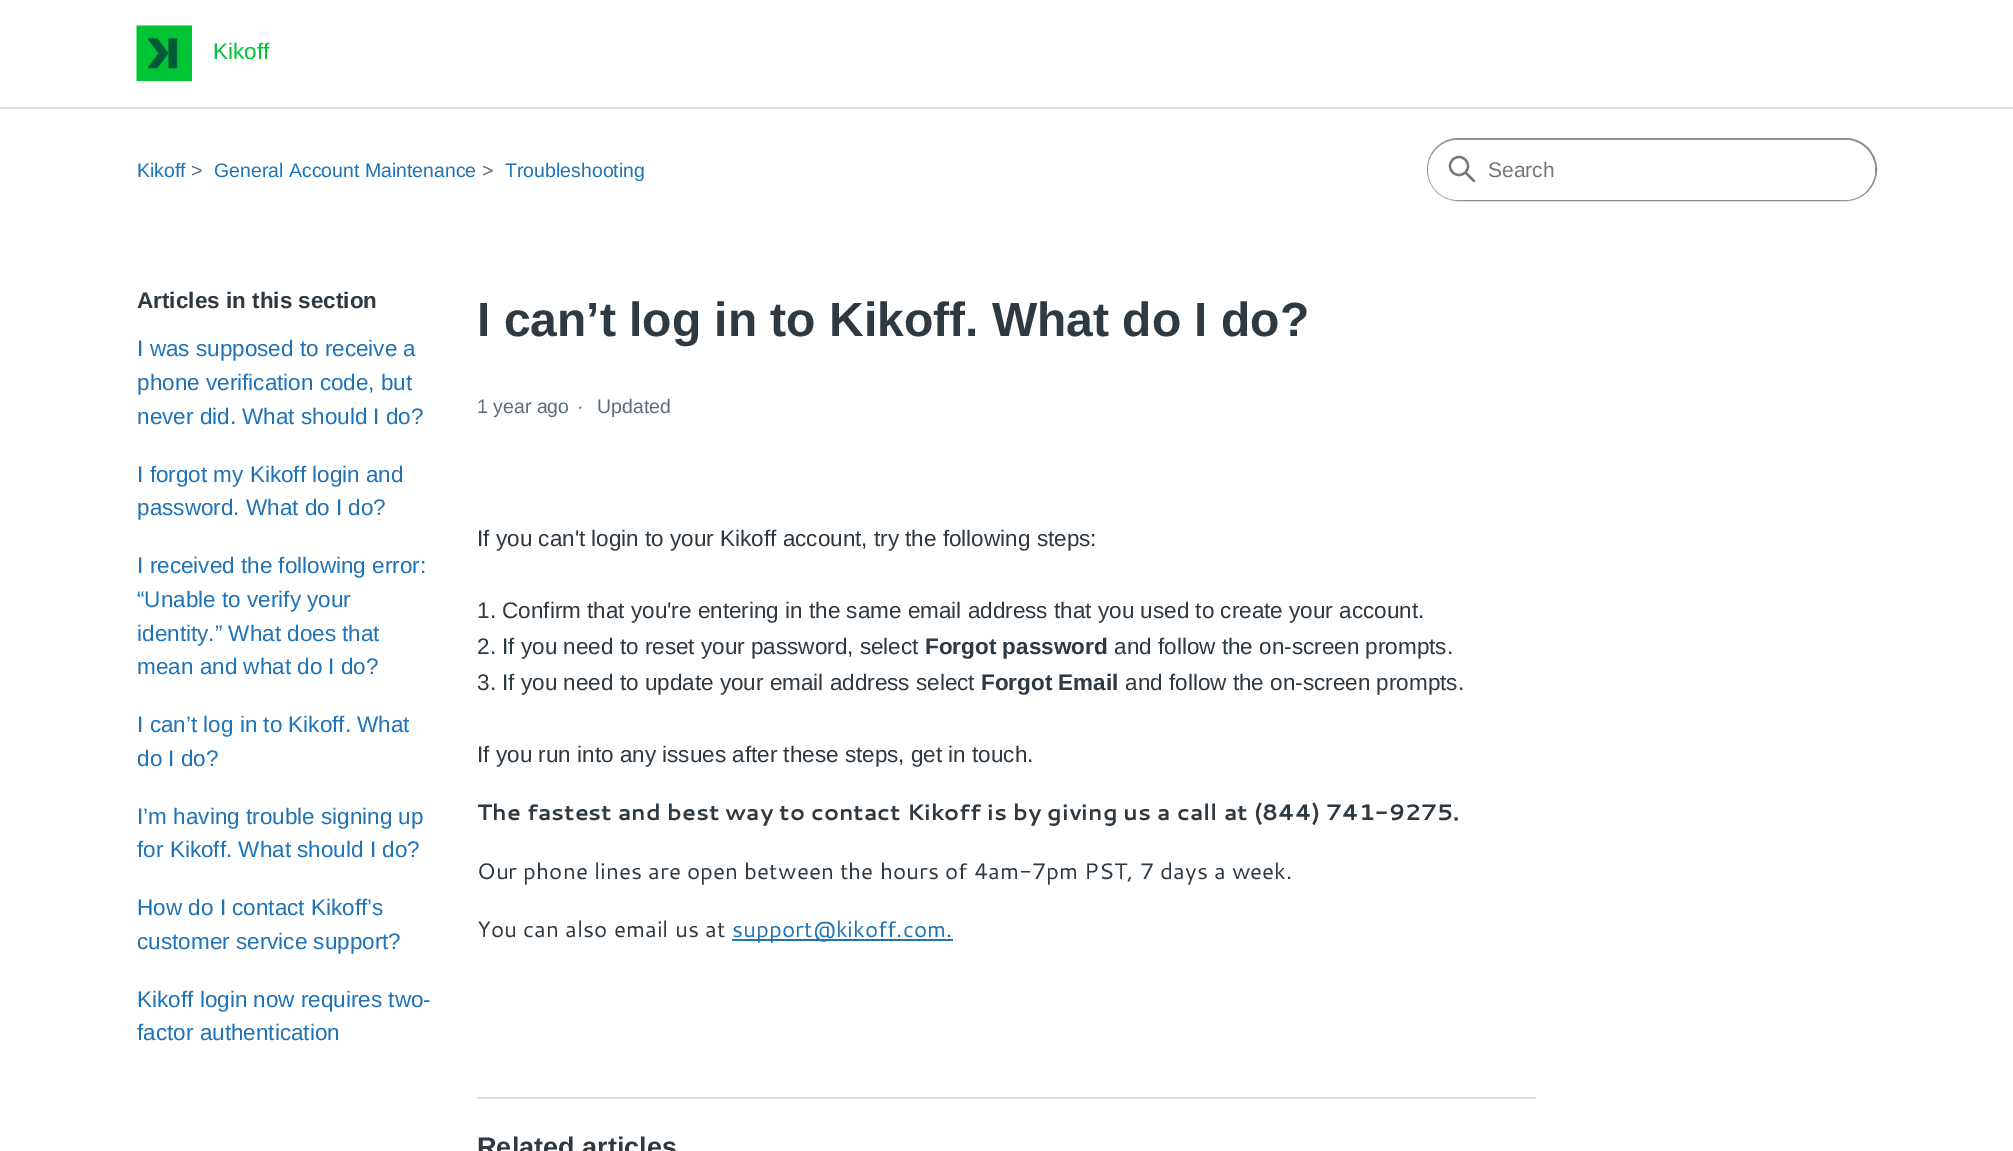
%!PS-Adobe-3.0
%%BoundingBox: 0 0 2013 1151
%%LanguageLevel: 3
%%Pages: 1
%%EndComments
%%BeginProlog
/setink { dup -16 bitshift 255 div exch dup -8 bitshift 255 and 255 div exch 255 and 255 div setrgbcolor } def
/usefont { [ exch dup neg 0 0 3 -1 roll 0 0 ] selectfont } def
/disc { newpath 0 360 arc closepath } def
/rrect { 5 dict begin { /r /h /w /y /x } { exch def } forall
  x r add y moveto x w add y 2 copy h add r arct x w add y h add x 1 index r arct
  x y h add x y r arct x y 2 copy exch w add exch r arct closepath end } def
/drawimage { 5 dict begin { /h /w /y /x /name } { exch def } forall
  gsave x y translate w h scale
  w h 8 [w 0 0 h 0 0] name (r) file false 3 colorimage grestore end } def
%%EndProlog
%%BeginSetup
<< /PageSize [2013 1151] >> setpagedevice
%%EndSetup
%%Page: 1 1
0 1151 translate 1 -1 scale
4 setmiterlimit
16#FFFFFF setink
0 0 2013 1151 rectfill
(img1.raw) 136 25 56 56 drawimage
/LiberationSans-Regular 22.5 usefont
16#00C434 setink
213 59 moveto (Kikoff) show
16#DDDDDD setink
0 107 2013 2 rectfill
/LiberationSans-Regular 19.5 usefont
16#1F73B7 setink
137 177 moveto (Kikoff) show
16#5A6D7C setink
191 177 moveto (>) show
16#1F73B7 setink
214 177 moveto (General Account Maintenance) show
16#5A6D7C setink
482 177 moveto (>) show
16#1F73B7 setink
505 177 moveto (Troubleshooting) show
16#87929D setink
2 setlinewidth
1428 139 448 61 30.5 rrect stroke
16#FFFFFF setink
1428 140 447 60 30 rrect fill
16#777777 setink
2.2 setlinewidth
1459 166 9 disc stroke
1 setlinecap
1474 181 moveto 1466 173 lineto stroke
/LiberationSans-Regular 21 usefont
16#757575 setink
1488 177 moveto (Search) show
/LiberationSans-Bold 22.5 usefont
16#2F3941 setink
137 308 moveto (Articles in this section) show
/LiberationSans-Regular 22.5 usefont
16#1F73B7 setink
[
    [(I was supposed to receive a) 137 356]
    [(phone verification code, but) 137 390]
    [(never did. What should I do?) 137 424]
    [(I forgot my Kikoff login and) 137 482]
    [(password. What do I do?) 137 515]
    [(I received the following error:) 137 573]
    [(“Unable to verify your) 137 607]
    [(identity.” What does that) 137 641]
    [(mean and what do I do?) 137 674]
    [(I can’t log in to Kikoff. What) 137 732]
    [(do I do?) 137 766]
    [(I’m having trouble signing up) 137 824]
    [(for Kikoff. What should I do?) 137 857]
    [(How do I contact Kikoff’s) 137 915]
    [(customer service support?) 137 949]
    [(Kikoff login now requires two-) 137 1007]
    [(factor authentication) 137 1040]
] { aload pop moveto show } forall
/LiberationSans-Bold 48 usefont
16#2F3941 setink
477 336 moveto (I can’t log in to Kikoff. What do I do?) show
/LiberationSans-Regular 19.5 usefont
16#5A6D7C setink
[
    [(1 year ago) 477 413]
    [(·) 577 413]
    [(Updated) 597 413]
] { aload pop moveto show } forall
/LiberationSans-Regular 22.5 usefont
16#2F3941 setink
[
    [(If you can't login to your Kikoff account, try the following steps:) 477 546]
    [(1. Confirm that you're entering in the same email address that you used to create your account.) 477 618]
    [(2. If you need to reset your password, select) 477 654]
] { aload pop moveto show } forall
/LiberationSans-Bold 22.5 usefont
925 654 moveto (Forgot password) show
/LiberationSans-Regular 22.5 usefont
1114 654 moveto (and follow the on-screen prompts.) show
477 690 moveto (3. If you need to update your email address select) show
/LiberationSans-Bold 22.5 usefont
981 690 moveto (Forgot Email) show
/LiberationSans-Regular 22.5 usefont
1125 690 moveto (and follow the on-screen prompts.) show
477 762 moveto (If you run into any issues after these steps, get in touch.) show
/Cantarell-Bold 22.5 usefont
477 820 moveto (The fastest and best way to contact Kikoff is by giving us a call at \(844\) 741-9275.) show
/Cantarell-Regular 22.5 usefont
477 879 moveto (Our phone lines are open between the hours of 4am-7pm PST, 7 days a week.) show
477 937 moveto (You can also email us at) show
16#1F73B7 setink
732 939 221 2 rectfill
732 937 moveto (support@kikoff.com.) show
16#DDDDDD setink
477 1097 1059 2 rectfill
/LiberationSans-Bold 27 usefont
16#2F3941 setink
477 1156 moveto (Related articles) show
showpage
%%EOF
